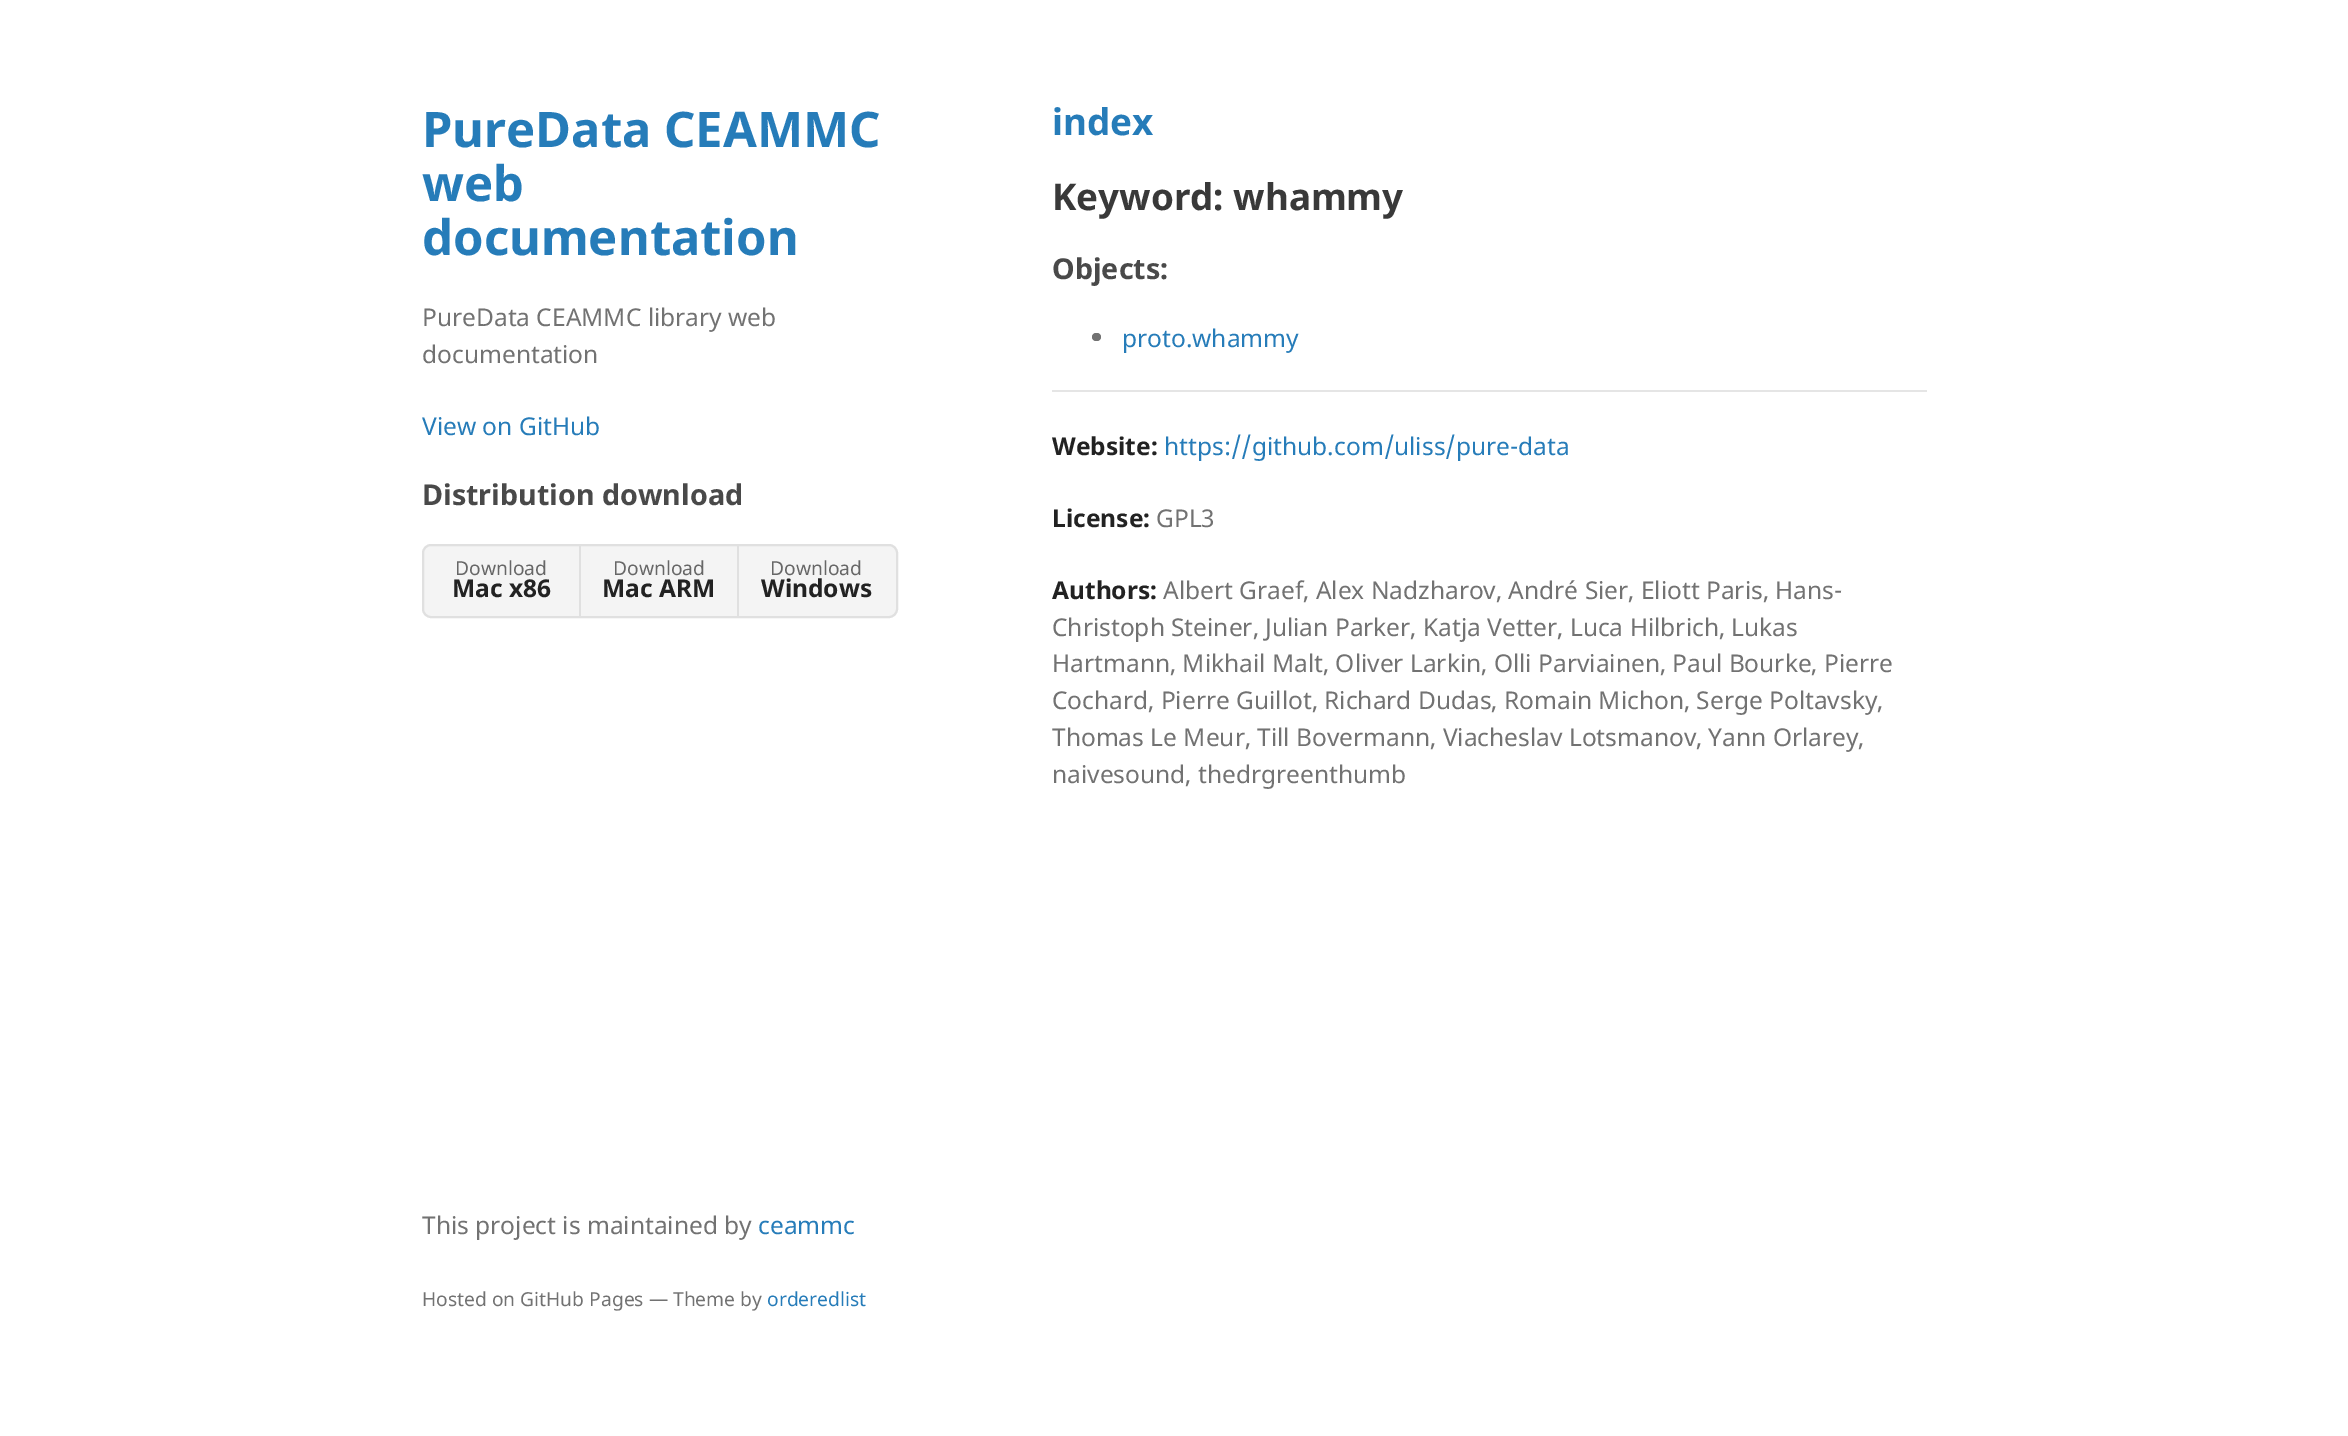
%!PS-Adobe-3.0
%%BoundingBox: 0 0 2348 1436
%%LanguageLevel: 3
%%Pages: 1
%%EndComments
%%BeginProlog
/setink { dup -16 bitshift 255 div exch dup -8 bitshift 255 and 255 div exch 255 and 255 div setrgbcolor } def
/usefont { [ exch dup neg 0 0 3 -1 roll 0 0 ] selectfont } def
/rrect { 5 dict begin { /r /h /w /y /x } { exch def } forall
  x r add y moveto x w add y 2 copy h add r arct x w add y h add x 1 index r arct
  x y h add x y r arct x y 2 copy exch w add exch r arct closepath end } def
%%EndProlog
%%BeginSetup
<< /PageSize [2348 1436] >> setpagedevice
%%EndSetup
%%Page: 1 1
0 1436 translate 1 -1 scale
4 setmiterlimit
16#FFFFFF setink
0 0 2348 1436 rectfill
/NotoSans-Bold 49 usefont
16#267CB9 setink
[
    [(PureData CEAMMC) 422 147]
    [(web) 422 201]
    [(documentation) 422 255]
] { aload pop moveto show } forall
/NotoSans-Regular 24.5 usefont
16#727272 setink
422 326 moveto (PureData CEAMMC library web) show
422 363 moveto (documentation) show
16#267CB9 setink
422 435 moveto (View on GitHub) show
/NotoSans-Bold 28.7 usefont
16#494949 setink
422 505 moveto (Distribution download) show
16#F4F4F4 setink
423 545 474 72 8 rrect gsave fill grestore
16#E0E0E0 setink
2 setlinewidth
stroke
579 546 2 70 rectfill
/NotoSans-Regular 19.25 usefont
16#676767 setink
455 575 moveto (Download) show
/NotoSans-Bold 24.5 usefont
16#222222 setink
452 597 moveto (Mac x86) show
16#E0E0E0 setink
737 546 2 70 rectfill
/NotoSans-Regular 19.25 usefont
16#676767 setink
613 575 moveto (Download) show
/NotoSans-Bold 24.5 usefont
16#222222 setink
602 597 moveto (Mac ARM) show
/NotoSans-Regular 19.25 usefont
16#676767 setink
770 575 moveto (Download) show
/NotoSans-Bold 24.5 usefont
16#222222 setink
761 597 moveto (Windows) show
/NotoSans-Bold 36.75 usefont
16#267CB9 setink
1052 135 moveto (index) show
16#393939 setink
1052 210 moveto (Keyword: whammy) show
/NotoSans-Bold 28.7 usefont
16#494949 setink
1052 279 moveto (Objects:) show
16#727272 setink
1092 333 9 8 4 rrect fill
/NotoSans-Regular 24.5 usefont
16#267CB9 setink
1122 347 moveto (proto.whammy) show
16#E5E5E5 setink
1052 390 875 2 rectfill
/NotoSans-Bold 24.5 usefont
16#222222 setink
1052 455 moveto (Website:) show
/NotoSans-Regular 24.5 usefont
16#267CB9 setink
1164 455 moveto (https://github.com/uliss/pure-data) show
/NotoSans-Bold 24.5 usefont
16#222222 setink
1052 527 moveto (License:) show
/NotoSans-Regular 24.5 usefont
16#727272 setink
1156 527 moveto (GPL3) show
/NotoSans-Bold 24.5 usefont
16#222222 setink
1052 599 moveto (Authors:) show
/NotoSans-Regular 24.5 usefont
16#727272 setink
[
    [(Albert Graef, Alex Nadzharov, André Sier, Eliott Paris, Hans-) 1163 599]
    [(Christoph Steiner, Julian Parker, Katja Vetter, Luca Hilbrich, Lukas) 1052 636]
    [(Hartmann, Mikhail Malt, Oliver Larkin, Olli Parviainen, Paul Bourke, Pierre) 1052 672]
    [(Cochard, Pierre Guillot, Richard Dudas, Romain Michon, Serge Poltavsky,) 1052 709]
    [(Thomas Le Meur, Till Bovermann, Viacheslav Lotsmanov, Yann Orlarey,) 1052 746]
    [(naivesound, thedrgreenthumb) 1052 783]
    [(This project is maintained by) 422 1234]
] { aload pop moveto show } forall
16#267CB9 setink
758 1234 moveto (ceammc) show
/NotoSans-Regular 19.25 usefont
16#727272 setink
422 1306 moveto (Hosted on GitHub Pages — Theme by) show
16#267CB9 setink
767 1306 moveto (orderedlist) show
showpage
%%EOF
